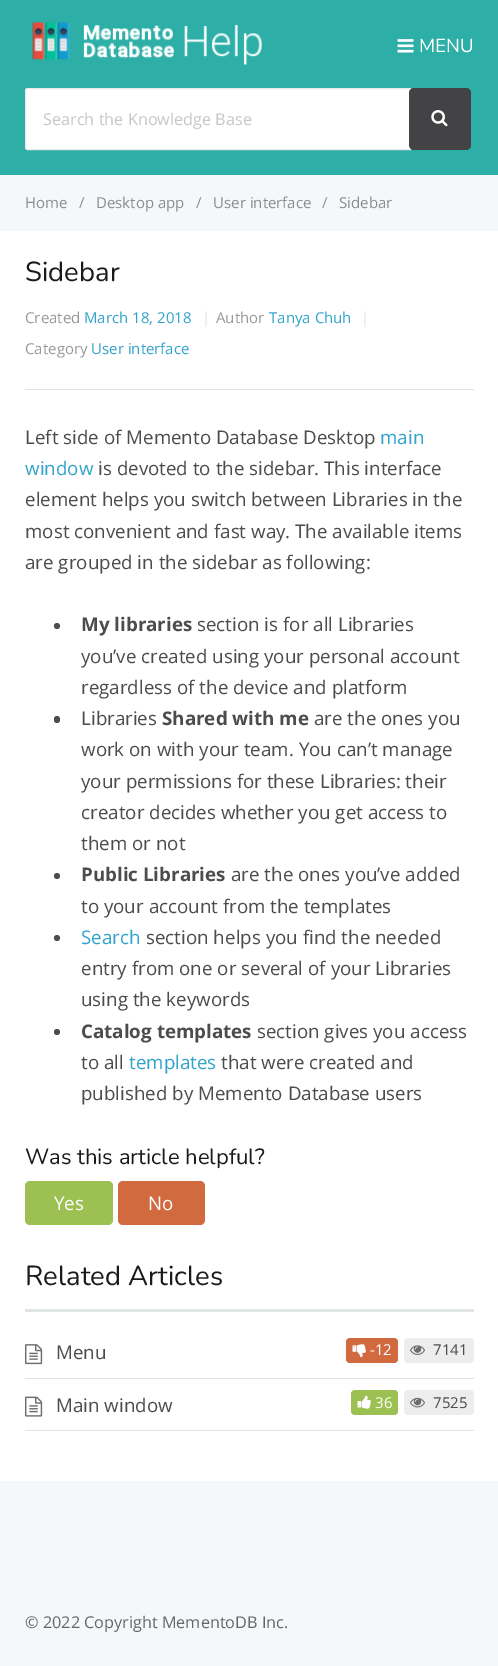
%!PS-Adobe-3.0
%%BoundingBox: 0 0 498 1666
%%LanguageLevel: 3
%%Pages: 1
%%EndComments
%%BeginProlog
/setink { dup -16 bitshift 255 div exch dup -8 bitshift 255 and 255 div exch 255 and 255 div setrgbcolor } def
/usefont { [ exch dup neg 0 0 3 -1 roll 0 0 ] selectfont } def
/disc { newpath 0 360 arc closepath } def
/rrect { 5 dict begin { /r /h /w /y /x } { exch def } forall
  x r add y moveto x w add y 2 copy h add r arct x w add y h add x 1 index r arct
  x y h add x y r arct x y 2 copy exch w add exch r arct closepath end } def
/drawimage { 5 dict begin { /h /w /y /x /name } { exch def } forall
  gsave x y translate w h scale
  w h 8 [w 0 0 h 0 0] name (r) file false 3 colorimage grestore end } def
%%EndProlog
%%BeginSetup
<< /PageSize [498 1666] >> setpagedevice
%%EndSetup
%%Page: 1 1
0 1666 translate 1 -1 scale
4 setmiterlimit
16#FFFFFF setink
0 0 498 1666 rectfill
16#2DAFA7 setink
0 0 498 175 rectfill
(img1.raw) 32 21 230 45 drawimage
(img2.raw) 397 39 17 14 drawimage
/Nunito-ExtraLight 18.75 usefont
16#FFFFFF setink
419 52 moveto (MENU) show
27.5 88.5 moveto 410.5 88.5 lineto 410.5 149.5 lineto 27.5 149.5 lineto 26.5 149.5 25.5 148.5 25.5 147.5 curveto 25.5 90.5 lineto 25.5 89.5 26.5 88.5 27.5 88.5 curveto closepath gsave fill grestore
16#EBEBEB setink
stroke
/OpenSans-Regular 16.25 usefont
16#C7C7C7 setink
43 125 moveto (Search the Knowledge Base) show
16#434345 setink
409 88 62 62 5 rrect fill
(img3.raw) 431 110 17 17 drawimage
16#F5F8FA setink
0 175 498 56 rectfill
/OpenSans-Regular 15 usefont
16#8C8C8C setink
[
    [(Home) 25 208]
    [(/) 79 208]
    [(Desktop app) 96 208]
    [(/) 196 208]
    [(User interface) 213 208]
    [(/) 322 208]
    [(Sidebar) 339 208]
] { aload pop moveto show } forall
16#DFE4E6 setink
25 389 449 1 rectfill
/Nunito-ExtraLight 27.5 usefont
16#1A1A1A setink
25 281 moveto (Sidebar) show
/OpenSans-Regular 15 usefont
16#999999 setink
25 323 moveto (Created) show
16#32A3CB setink
84 323 moveto (March 18, 2018) show
16#E1E3E6 setink
202 323 moveto (|) show
16#999999 setink
216 323 moveto (Author) show
16#32A3CB setink
269 323 moveto (Tanya Chuh) show
16#E1E3E6 setink
361 323 moveto (|) show
16#999999 setink
25 354 moveto (Category) show
16#32A3CB setink
91 354 moveto (User interface) show
/OpenSans-Regular 18.75 usefont
16#4B4D4D setink
25 444 moveto (Left side of Memento Database Desktop) show
16#32A3CB setink
380 444 moveto (main) show
25 475 moveto (window) show
16#4B4D4D setink
[
    [(is devoted to the sidebar. This interface) 98 475]
    [(element helps you switch between Libraries in the) 25 506]
    [(most convenient and fast way. The available items) 25 538]
    [(are grouped in the sidebar as following:) 25 569]
] { aload pop moveto show } forall
57 626 3 disc fill
/OpenSans-Bold 18.75 usefont
81 631 moveto (My libraries) show
/OpenSans-Regular 18.75 usefont
[
    [(section is for all Libraries) 197 631]
    [(you’ve created using your personal account) 81 663]
    [(regardless of the device and platform) 81 694]
] { aload pop moveto show } forall
54 716 6 7 3 rrect fill
81 725 moveto (Libraries) show
/OpenSans-Bold 18.75 usefont
162 725 moveto (Shared with me) show
/OpenSans-Regular 18.75 usefont
[
    [(are the ones you) 314 725]
    [(work on with your team. You can’t manage) 81 756]
    [(your permissions for these Libraries: their) 81 788]
    [(creator decides whether you get access to) 81 819]
    [(them or not) 81 850]
] { aload pop moveto show } forall
57 876 3 disc fill
/OpenSans-Bold 18.75 usefont
81 881 moveto (Public Libraries) show
/OpenSans-Regular 18.75 usefont
231 881 moveto (are the ones you’ve added) show
81 913 moveto (to your account from the templates) show
57 938 3 disc fill
16#32A3CB setink
81 944 moveto (Search) show
16#4B4D4D setink
[
    [(section helps you find the needed) 146 944]
    [(entry from one or several of your Libraries) 81 975]
    [(using the keywords) 81 1006]
] { aload pop moveto show } forall
57 1032 3 disc fill
/OpenSans-Bold 18.75 usefont
81 1038 moveto (Catalog templates) show
/OpenSans-Regular 18.75 usefont
257 1038 moveto (section gives you access) show
81 1069 moveto (to all) show
16#32A3CB setink
129 1069 moveto (templates) show
16#4B4D4D setink
221 1069 moveto (that were created and) show
81 1100 moveto (published by Memento Database users) show
/Nunito-ExtraLight 22 usefont
16#1A1A1A setink
25 1164 moveto (Was this article helpful?) show
16#9CC051 setink
25 1181 88 44 5 rrect fill
/OpenSans-Regular 18.75 usefont
16#FFFFFF setink
54 1210 moveto (Yes) show
16#D26A40 setink
118 1181 87 44 5 rrect fill
16#FFFFFF setink
148 1210 moveto (No) show
16#DFE4E6 setink
25 1309 449 3 rectfill
/Nunito-ExtraLight 27.5 usefont
16#1A1A1A setink
25 1285 moveto (Related Articles) show
16#E1E3E6 setink
25 1378 449 1 rectfill
(img4.raw) 25 1344 18 21 drawimage
/OpenSans-Regular 18.75 usefont
16#4B4D4D setink
56 1359 moveto (Menu) show
16#D26A40 setink
346 1338 52 25 4 rrect fill
(img5.raw) 352 1344 14 14 drawimage
/OpenSans-Regular 15 usefont
16#FFFFFF setink
370 1355 moveto (-12) show
16#EDEDED setink
404 1338 70 25 4 rrect fill
(img6.raw) 410 1345 15 10 drawimage
16#4B4D4D setink
433 1355 moveto (7141) show
16#E1E3E6 setink
25 1430 449 1 rectfill
(img7.raw) 25 1396 18 21 drawimage
/OpenSans-Regular 18.75 usefont
16#4B4D4D setink
56 1412 moveto (Main window) show
16#9CC051 setink
351 1390 47 25 4 rrect fill
(img8.raw) 357 1395 14 14 drawimage
/OpenSans-Regular 15 usefont
16#FFFFFF setink
375 1408 moveto (36) show
16#EDEDED setink
404 1390 70 25 4 rrect fill
(img9.raw) 410 1397 15 11 drawimage
16#4B4D4D setink
433 1408 moveto (7525) show
16#F5F8FA setink
0 1481 498 185 rectfill
/OpenSans-Regular 16.25 usefont
16#666666 setink
25 1628 moveto (© 2022 Copyright MementoDB Inc.) show
showpage
%%EOF
